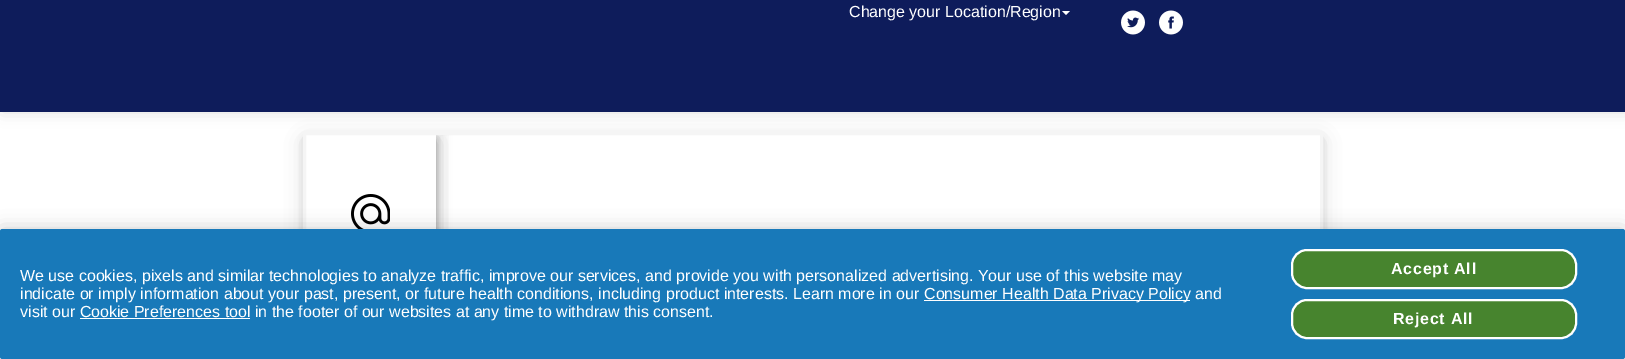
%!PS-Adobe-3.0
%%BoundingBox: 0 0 1625 359
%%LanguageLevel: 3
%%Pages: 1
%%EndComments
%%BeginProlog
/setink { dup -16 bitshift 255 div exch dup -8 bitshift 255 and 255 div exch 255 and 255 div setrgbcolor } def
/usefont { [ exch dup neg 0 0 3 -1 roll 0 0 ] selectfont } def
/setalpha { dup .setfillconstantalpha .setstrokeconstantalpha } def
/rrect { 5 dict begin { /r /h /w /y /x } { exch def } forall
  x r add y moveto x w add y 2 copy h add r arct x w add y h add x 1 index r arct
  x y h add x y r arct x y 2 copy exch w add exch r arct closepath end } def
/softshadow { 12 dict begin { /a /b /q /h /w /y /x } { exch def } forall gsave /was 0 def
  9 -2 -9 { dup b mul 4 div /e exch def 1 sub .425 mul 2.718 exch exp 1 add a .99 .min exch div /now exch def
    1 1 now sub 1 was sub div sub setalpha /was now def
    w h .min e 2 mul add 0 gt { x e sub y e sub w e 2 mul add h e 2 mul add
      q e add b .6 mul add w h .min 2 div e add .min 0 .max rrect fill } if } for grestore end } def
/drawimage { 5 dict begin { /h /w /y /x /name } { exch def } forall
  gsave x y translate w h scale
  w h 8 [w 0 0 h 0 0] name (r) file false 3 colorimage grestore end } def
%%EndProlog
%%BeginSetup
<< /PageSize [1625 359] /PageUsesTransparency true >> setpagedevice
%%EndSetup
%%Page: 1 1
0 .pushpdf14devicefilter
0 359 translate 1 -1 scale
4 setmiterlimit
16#FFFFFF setink
0 0 1625 359 rectfill
16#DDDDDD setink
2 -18 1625 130 0 7.5 1 softshadow
16#0E1C5B setink
0 0 1625 112 rectfill
/LiberationSans-Regular 16 usefont
16#FFFFFF setink
849 17 moveto (Change your Location/Region) show
1062 11 moveto 1070 11 lineto 1066 15 lineto closepath fill
(img1.raw) 1121 10 24 25 drawimage
(img2.raw) 1159 10 24 25 drawimage
gsave
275 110 moveto 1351 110 lineto 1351 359 lineto 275 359 lineto closepath 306 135 moveto 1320 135 lineto 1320 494 lineto 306 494 lineto closepath eoclip newpath
16#000000 setink
306 141 1014 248 0 10 0.19 softshadow
grestore
gsave
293 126 moveto 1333 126 lineto 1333 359 lineto 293 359 lineto closepath 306 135 moveto 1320 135 lineto 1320 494 lineto 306 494 lineto closepath eoclip newpath
16#000000 setink
306 139 1014 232 0 4 0.2 softshadow
grestore
16#F5F5F5 setink
3 setlinewidth
304.5 133.5 1017 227 rectstroke
gsave
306 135 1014 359 rectclip
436 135 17 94 rectclip
16#DDDDDD setink
308 135 130 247 0 7.5 1 softshadow
grestore
gsave
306 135 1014 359 rectclip
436 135 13 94 rectclip
16#000000 setink
306 141 130 179 0 10 0.19 softshadow
grestore
gsave
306 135 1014 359 rectclip
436 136 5 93 rectclip
16#000000 setink
306 139 130 179 0 4 0.2 softshadow
grestore
(img3.raw) 351 194 39 35 drawimage
16#000000 setink
0 229 1625 130 2.5 9 0.2 softshadow
16#1879B9 setink
0 229 1625 130 2.5 rrect fill
16#FFFFFF setink
20 281 moveto (We use cookies, pixels and similar technologies to analyze traffic, improve our services, and provide you with personalized advertising. Your use of this website may) show
20 299 moveto (indicate or imply information about your past, present, or future health conditions, including product interests. Learn more in our) show
924 300 266 1 rectfill
924 299 moveto (Consumer Health Data Privacy Policy and) show
20 317 moveto (visit our Cookie Preferences tool in the footer of our websites at any time to withdraw this consent.) show
80 318 170 1 rectfill
16#47842E setink
1292 250 284 38 15 rrect gsave fill grestore
16#FFFFFF setink
2 setlinewidth
stroke
/LiberationSans-Bold 16 usefont
1391 274 moveto 0.75 0 (Accept All) ashow
16#47842E setink
1292 300 284 38 15 rrect gsave fill grestore
16#FFFFFF setink
stroke
1393 324 moveto 0.75 0 (Reject All) ashow
.poppdf14devicefilter showpage
%%EOF
